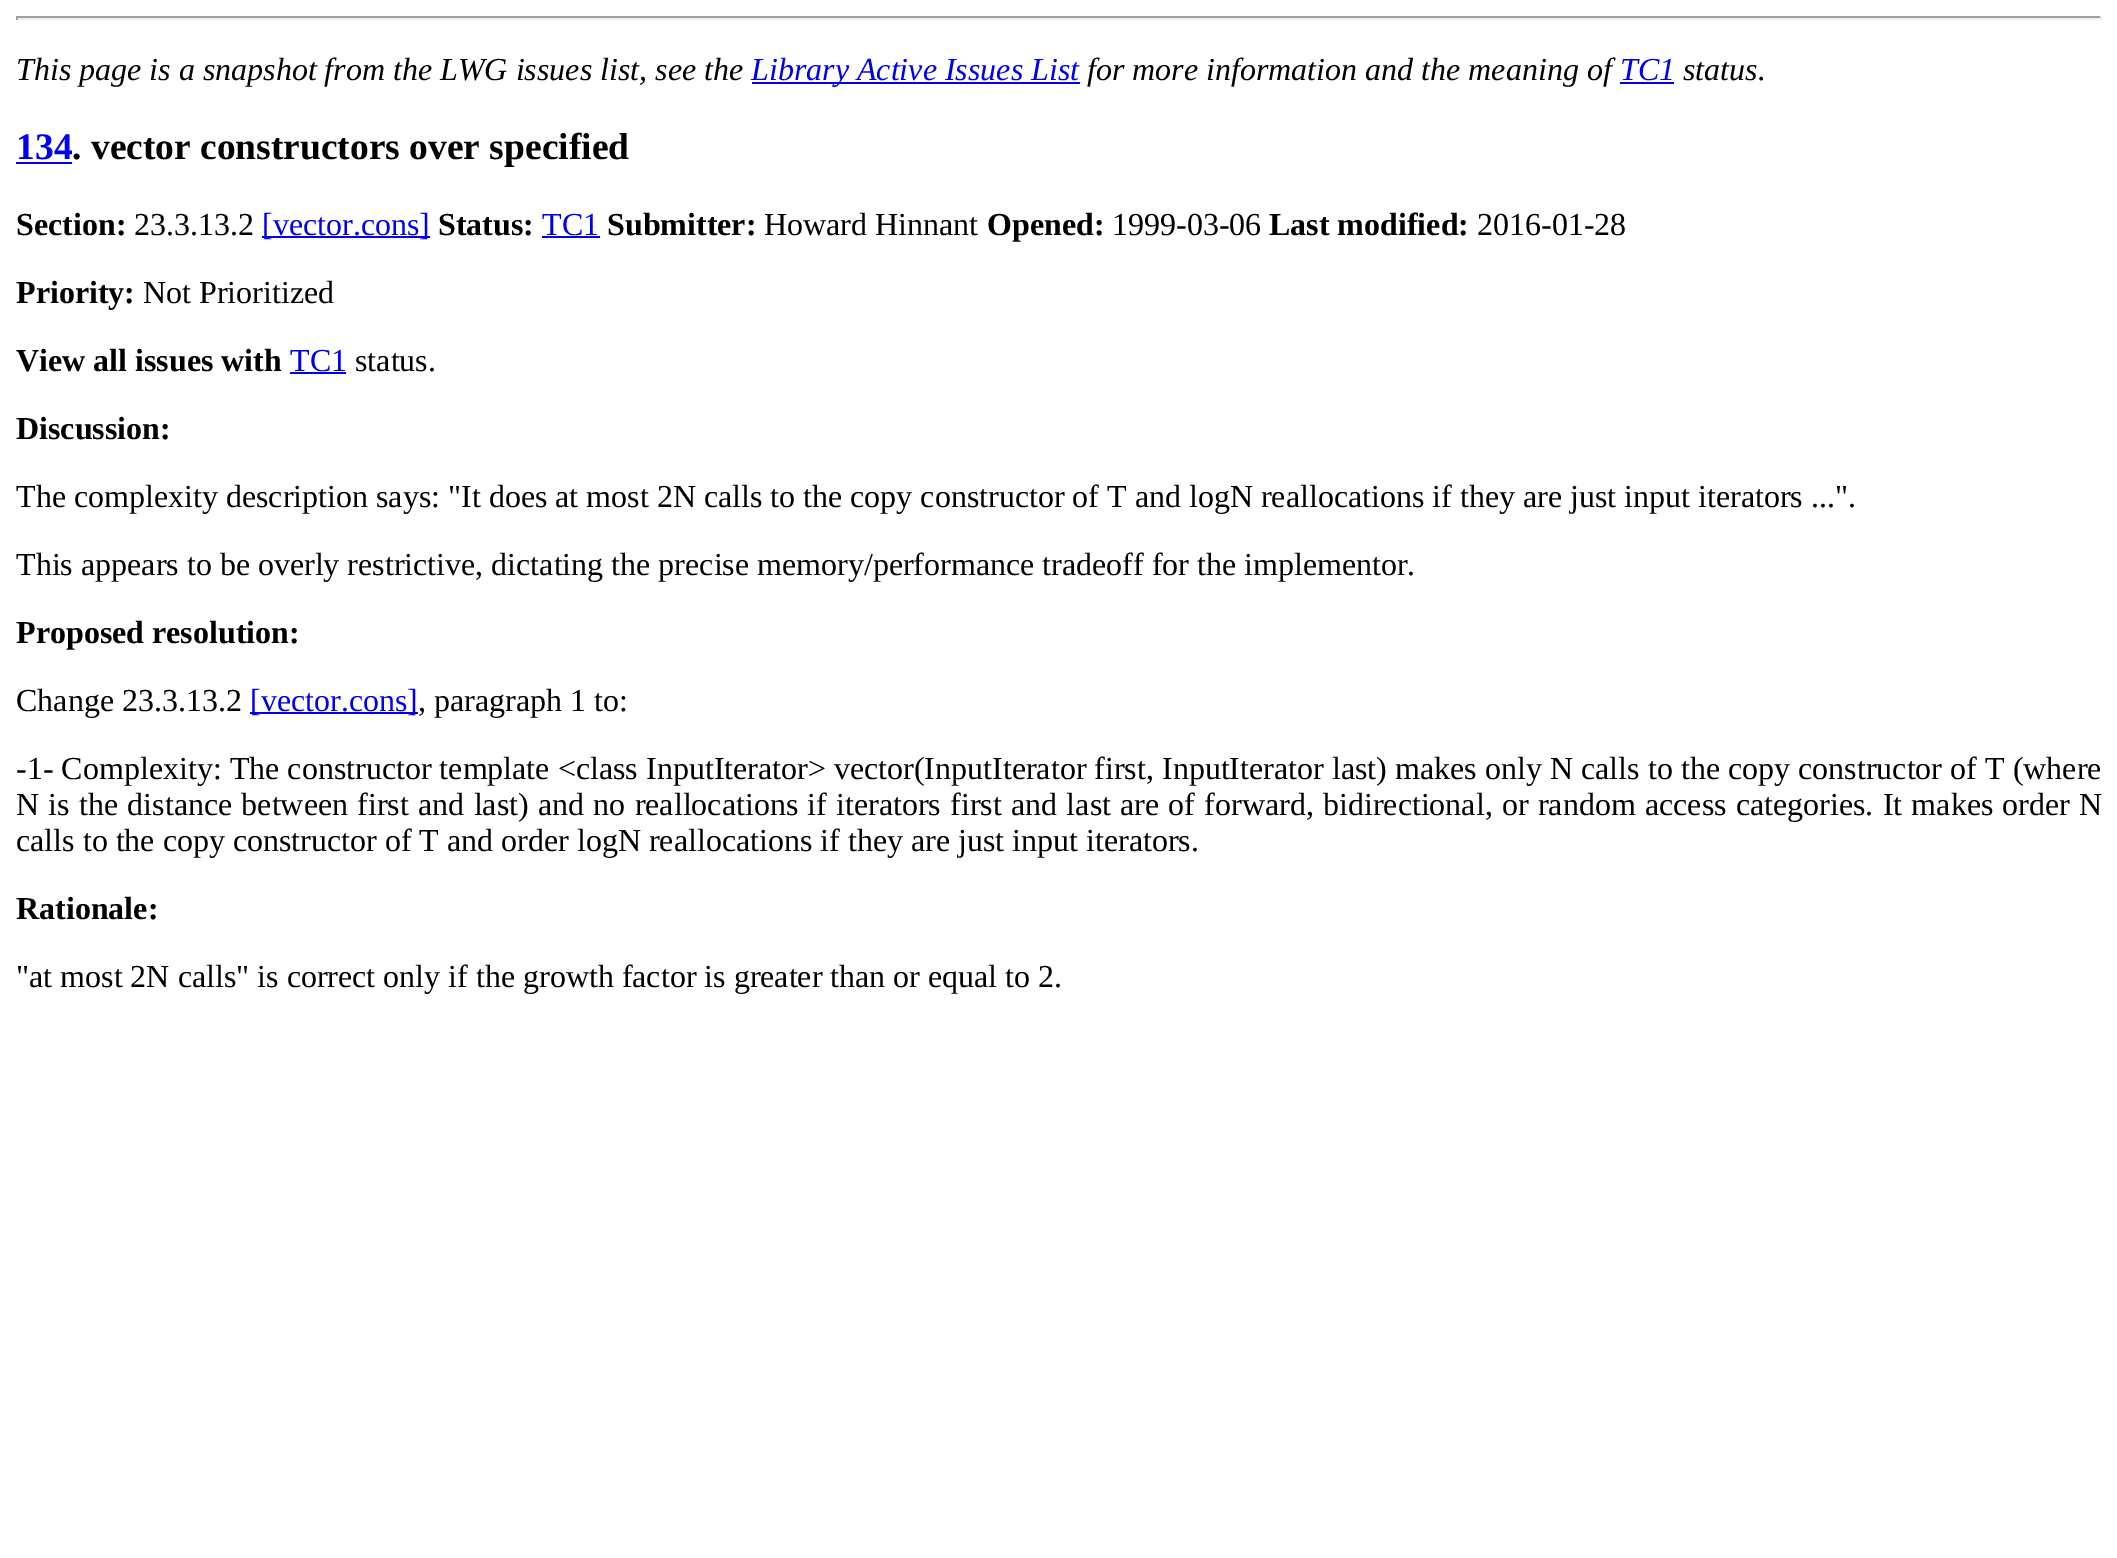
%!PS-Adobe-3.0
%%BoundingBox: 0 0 2117 1558
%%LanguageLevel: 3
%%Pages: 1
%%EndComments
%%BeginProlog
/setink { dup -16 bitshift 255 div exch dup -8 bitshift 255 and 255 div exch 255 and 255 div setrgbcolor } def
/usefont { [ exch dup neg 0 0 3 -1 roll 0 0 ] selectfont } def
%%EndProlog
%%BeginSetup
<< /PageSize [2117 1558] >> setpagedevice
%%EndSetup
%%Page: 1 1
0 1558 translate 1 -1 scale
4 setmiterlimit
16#FFFFFF setink
0 0 2117 1558 rectfill
[
    [16 16 2086 2 16#9F9F9F]
    [2100 16 2 4 16#EEEEEE]
    [16 18 2086 2 16#EEEEEE]
    [16 16 2 4 16#9F9F9F]
] { aload pop setink rectfill } forall
/LiberationSerif-Italic 32 usefont
16#000000 setink
16 80 moveto (This page is a snapshot from the LWG issues list, see the) show
16#0000EE setink
752 82 328 2 rectfill
751 80 moveto (Library Active Issues List) show
16#000000 setink
1087 80 moveto (for more information and the meaning of) show
16#0000EE setink
1620 82 54 2 rectfill
1620 80 moveto (TC1) show
16#000000 setink
1683 80 moveto (status.) show
/LiberationSerif-Bold 37.5 usefont
16#0000EE setink
16 159 moveto (134) show
16 162 56 2 rectfill
16#000000 setink
72 159 moveto (. vector constructors over specified) show
/LiberationSerif-Bold 32 usefont
16 235 moveto (Section:) show
/LiberationSerif-Regular 32 usefont
134 235 moveto (23.3.13.2) show
16#0000EE setink
262 236 168 2 rectfill
262 235 moveto ([vector.cons]) show
/LiberationSerif-Bold 32 usefont
16#000000 setink
438 235 moveto (Status:) show
/LiberationSerif-Regular 32 usefont
16#0000EE setink
542 235 moveto (TC1) show
542 236 58 2 rectfill
/LiberationSerif-Bold 32 usefont
16#000000 setink
607 235 moveto (Submitter:) show
/LiberationSerif-Regular 32 usefont
764 235 moveto (Howard Hinnant) show
/LiberationSerif-Bold 32 usefont
987 235 moveto (Opened:) show
/LiberationSerif-Regular 32 usefont
1112 235 moveto (1999-03-06) show
/LiberationSerif-Bold 32 usefont
1269 235 moveto (Last modified:) show
/LiberationSerif-Regular 32 usefont
1477 235 moveto (2016-01-28) show
/LiberationSerif-Bold 32 usefont
16 303 moveto (Priority:) show
/LiberationSerif-Regular 32 usefont
143 303 moveto (Not Prioritized) show
/LiberationSerif-Bold 32 usefont
16 371 moveto (View all issues with) show
/LiberationSerif-Regular 32 usefont
16#0000EE setink
290 371 moveto (TC1) show
290 372 56 2 rectfill
16#000000 setink
355 371 moveto (status.) show
/LiberationSerif-Bold 32 usefont
16 439 moveto (Discussion:) show
/LiberationSerif-Regular 32 usefont
16 507 moveto (The complexity description says: "It does at most 2N calls to the copy constructor of T and logN reallocations if they are just input iterators ...".) show
16 575 moveto (This appears to be overly restrictive, dictating the precise memory/performance tradeoff for the implementor.) show
/LiberationSerif-Bold 32 usefont
16 643 moveto (Proposed resolution:) show
/LiberationSerif-Regular 32 usefont
16 711 moveto (Change 23.3.13.2) show
16#0000EE setink
250 712 168 2 rectfill
250 711 moveto ([vector.cons]) show
16#000000 setink
418 711 moveto (, paragraph 1 to:) show
16 779 moveto 0.1 0 32 (-1- Complexity: The constructor template <class InputIterator> vector\(InputIterator first, InputIterator last\) makes only N calls to the copy constructor of T \(where) widthshow
16 815 moveto 1.25 0 32 (N is the distance between first and last\) and no reallocations if iterators first and last are of forward, bidirectional, or random access categories. It makes order N) widthshow
16 851 moveto (calls to the copy constructor of T and order logN reallocations if they are just input iterators.) show
/LiberationSerif-Bold 32 usefont
16 919 moveto (Rationale:) show
/LiberationSerif-Regular 32 usefont
16 987 moveto ("at most 2N calls" is correct only if the growth factor is greater than or equal to 2.) show
showpage
%%EOF
